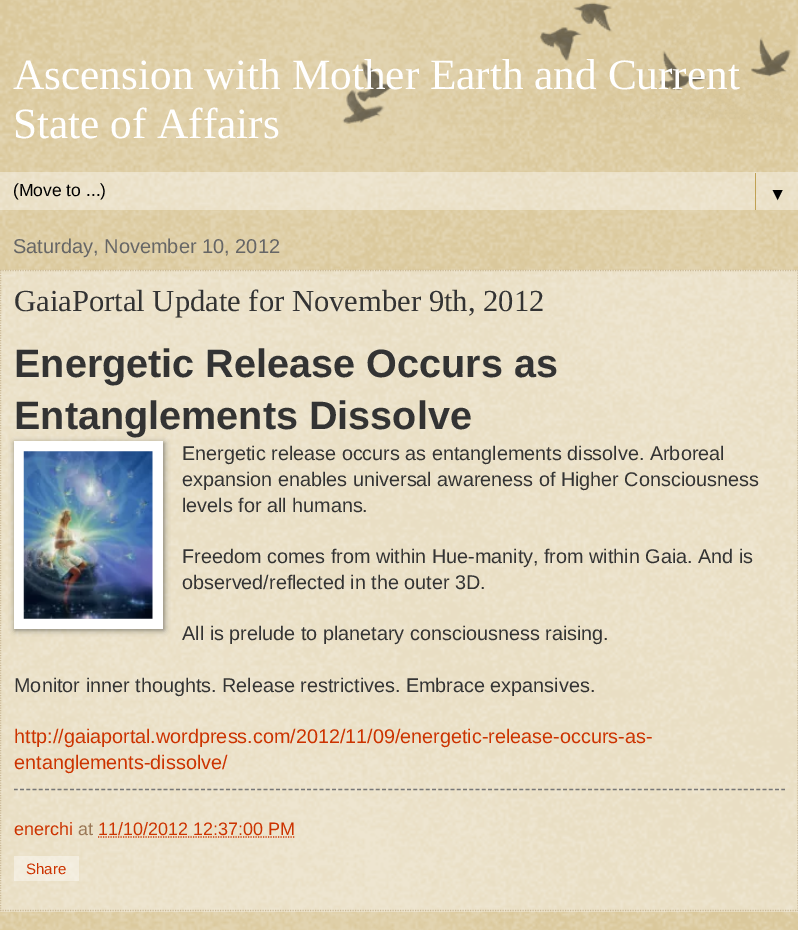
%!PS-Adobe-3.0
%%BoundingBox: 0 0 798 930
%%LanguageLevel: 3
%%Pages: 1
%%EndComments
%%BeginProlog
/setink { dup -16 bitshift 255 div exch dup -8 bitshift 255 and 255 div exch 255 and 255 div setrgbcolor } def
/usefont { [ exch dup neg 0 0 3 -1 roll 0 0 ] selectfont } def
/setalpha { dup .setfillconstantalpha .setstrokeconstantalpha } def
/rrect { 5 dict begin { /r /h /w /y /x } { exch def } forall
  x r add y moveto x w add y 2 copy h add r arct x w add y h add x 1 index r arct
  x y h add x y r arct x y 2 copy exch w add exch r arct closepath end } def
/softshadow { 12 dict begin { /a /b /q /h /w /y /x } { exch def } forall gsave /was 0 def
  9 -2 -9 { dup b mul 4 div /e exch def 1 sub .425 mul 2.718 exch exp 1 add a .99 .min exch div /now exch def
    1 1 now sub 1 was sub div sub setalpha /was now def
    w h .min e 2 mul add 0 gt { x e sub y e sub w e 2 mul add h e 2 mul add
      q e add b .6 mul add w h .min 2 div e add .min 0 .max rrect fill } if } for grestore end } def
/drawimage { 5 dict begin { /h /w /y /x /name } { exch def } forall
  gsave x y translate w h scale
  w h 8 [w 0 0 h 0 0] name (r) file false 3 colorimage grestore end } def
%%EndProlog
%%BeginSetup
<< /PageSize [798 930] /PageUsesTransparency true >> setpagedevice
%%EndSetup
%%Page: 1 1
0 .pushpdf14devicefilter
0 930 translate 1 -1 scale
4 setmiterlimit
16#C0A154 setink
0 0 798 930 rectfill
(img1.raw) 0 0 798 930 drawimage
(img2.raw) 342 2 450 122 drawimage
/LiberationSerif-Regular 43.25 usefont
16#FFFFFF setink
13 89 moveto (Ascension with Mother Earth and Current) show
13 138 moveto (State of Affairs) show
0.4 setalpha
0 172 798 38 rectfill
/LiberationSans-Regular 17.5 usefont
1 setalpha
16#000000 setink
13 196 moveto (\(Move to ...\)) show
16#C0A154 setink
755 173 1 37 rectfill
16#000000 setink
769 200 moveto (▼) show
/LiberationSans-Regular 20 usefont
16#666666 setink
13 253 moveto (Saturday, November 10, 2012) show
0.4 setalpha
16#FFFFFF setink
0 270 798 642 rectfill
1 setalpha
16#CCBB99 setink
1.2 setlinewidth
[1.25 1.25] 0 setdash
0 270.5 moveto 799 270.5 lineto stroke
798 270 moveto 798 911 lineto stroke
0 910.5 moveto 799 910.5 lineto stroke
0.5 270 moveto 0.5 911 lineto stroke
/LiberationSerif-Regular 30.6 usefont
16#333333 setink
14 311 moveto (GaiaPortal Update for November 9th, 2012) show
/LiberationSans-Bold 39.6 usefont
14 377 moveto (Energetic Release Occurs as) show
14 429 moveto (Entanglements Dissolve) show
16#000000 setink
15 443 149 187 0 3 0.5 softshadow
16#FFFFFF setink
14 441 149 188 rectfill
(img3.raw) 23 451 130 168 drawimage
/LiberationSans-Regular 19.8 usefont
16#333333 setink
[
    [(Energetic release occurs as entanglements dissolve. Arboreal) 182 460]
    [(expansion enables universal awareness of Higher Consciousness) 182 486]
    [(levels for all humans.) 182 512]
    [(Freedom comes from within Hue-manity, from within Gaia. And is) 182 563]
    [(observed/reflected in the outer 3D.) 182 589]
    [(All is prelude to planetary consciousness raising.) 182 640]
    [(Monitor inner thoughts. Release restrictives. Embrace expansives.) 14 692]
] { aload pop moveto show } forall
16#CC3300 setink
14 743 moveto (http://gaiaportal.wordpress.com/2012/11/09/energetic-release-occurs-as-) show
14 769 moveto (entanglements-dissolve/) show
16#777777 setink
[3.75 2.49] 0 setdash
14 789.5 moveto 785 789.5 lineto stroke
/LiberationSans-Regular 18 usefont
16#CC3300 setink
14 835 moveto (enerchi) show
16#997755 setink
78 835 moveto (at) show
16#CC3300 setink
98 835 moveto (11/10/2012 12:37:00 PM) show
[1.25 1.25] 0 setdash
98 837 moveto 295 837 lineto stroke
0.4 setalpha
16#FFFFFF setink
14 856 65 25 rectfill
/LiberationSans-Regular 15 usefont
1 setalpha
16#CC3300 setink
26 874 moveto (Share) show
.poppdf14devicefilter showpage
%%EOF
